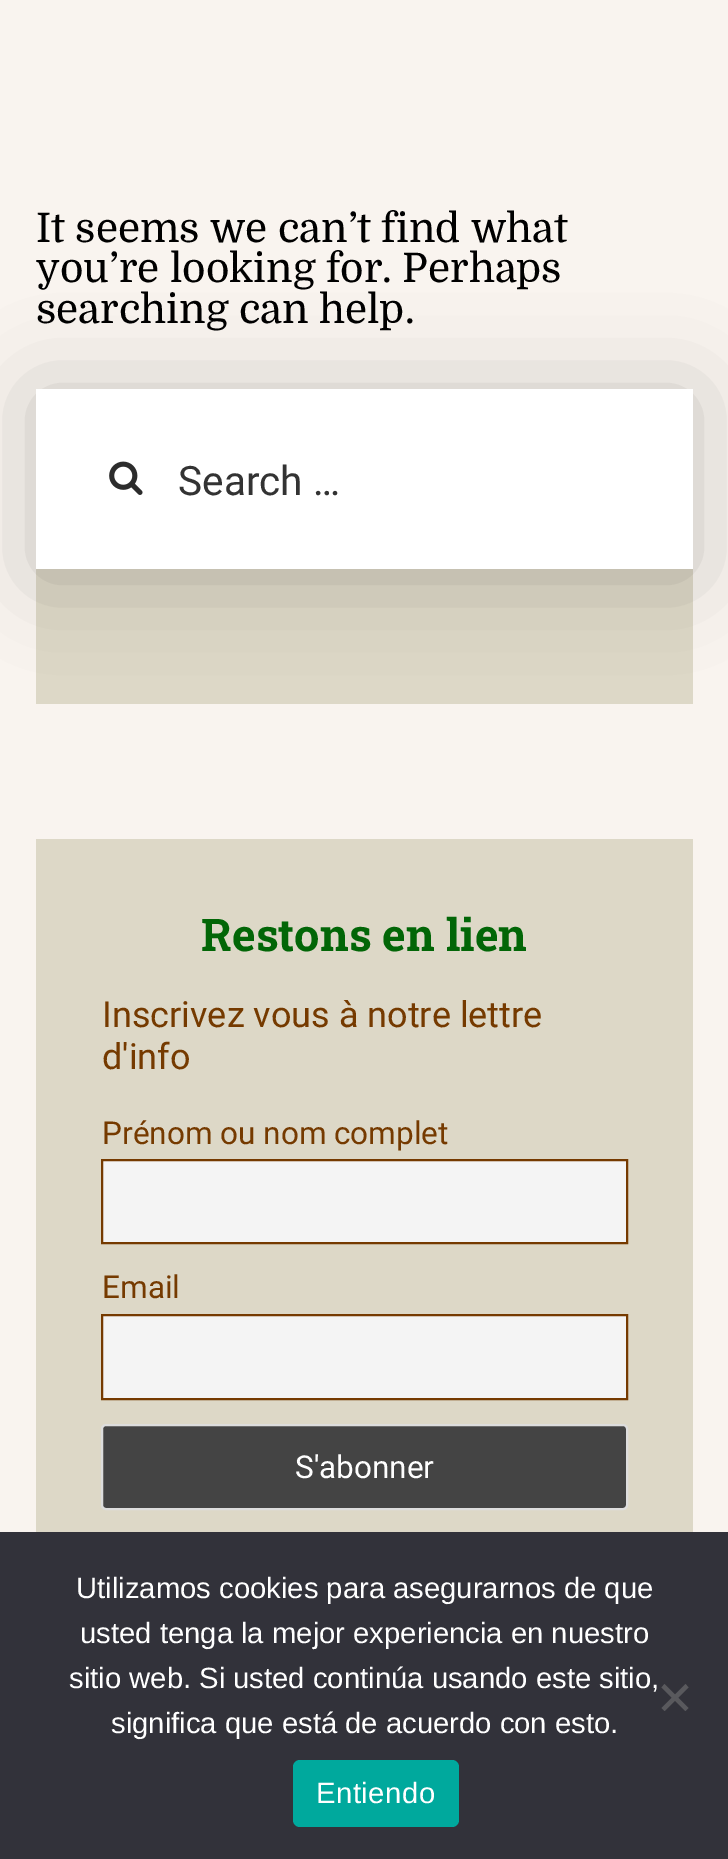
%!PS-Adobe-3.0
%%BoundingBox: 0 0 728 1859
%%LanguageLevel: 3
%%Pages: 1
%%EndComments
%%BeginProlog
/setink { dup -16 bitshift 255 div exch dup -8 bitshift 255 and 255 div exch 255 and 255 div setrgbcolor } def
/usefont { [ exch dup neg 0 0 3 -1 roll 0 0 ] selectfont } def
/setalpha { dup .setfillconstantalpha .setstrokeconstantalpha } def
/rrect { 5 dict begin { /r /h /w /y /x } { exch def } forall
  x r add y moveto x w add y 2 copy h add r arct x w add y h add x 1 index r arct
  x y h add x y r arct x y 2 copy exch w add exch r arct closepath end } def
/softshadow { 12 dict begin { /a /b /q /h /w /y /x } { exch def } forall gsave /was 0 def
  9 -2 -9 { dup b mul 4 div /e exch def 1 sub .425 mul 2.718 exch exp 1 add a .99 .min exch div /now exch def
    1 1 now sub 1 was sub div sub setalpha /was now def
    w h .min e 2 mul add 0 gt { x e sub y e sub w e 2 mul add h e 2 mul add
      q e add b .6 mul add w h .min 2 div e add .min 0 .max rrect fill } if } for grestore end } def
/drawimage { 5 dict begin { /h /w /y /x /name } { exch def } forall
  gsave x y translate w h scale
  w h 8 [w 0 0 h 0 0] name (r) file false 3 colorimage grestore end } def
%%EndProlog
%%BeginSetup
<< /PageSize [728 1859] /PageUsesTransparency true >> setpagedevice
%%EndSetup
%%Page: 1 1
0 .pushpdf14devicefilter
0 1859 translate 1 -1 scale
4 setmiterlimit
16#F9F4EF setink
0 0 728 1859 rectfill
/Domine-Regular 40.5 usefont
16#000000 setink
[
    [(It seems we can’t find what) 36 242]
    [(you’re looking for. Perhaps) 36 282]
    [(searching can help.) 36 323]
] { aload pop moveto show } forall
16#DDD8C7 setink
36 569 657 135 rectfill
16#000000 setink
36 394 657 180 0 45 0.2 softshadow
16#FFFFFF setink
36 389 657 180 rectfill
(img1.raw) 109 461 34 34 drawimage
/Roboto-Regular 40.5 usefont
16#333333 setink
178 495 moveto (Search …) show
16#DDD8C7 setink
36 839 657 693 rectfill
/RobotoSlab-Bold 45 usefont
16#026607 setink
201 951 moveto (Restons en lien) show
/Roboto-Regular 36 usefont
16#753A00 setink
102 1027 moveto (Inscrivez vous à notre lettre) show
102 1069 moveto (d'info) show
/Roboto-Regular 31.5 usefont
102 1144 moveto (Prénom ou nom complet) show
16#F4F4F4 setink
102 1160 moveto 627 1160 lineto 627 1243 lineto 102 1243 lineto closepath gsave fill grestore
16#753A00 setink
2 setlinewidth
stroke
102 1298 moveto (Email) show
16#F4F4F4 setink
102 1315 moveto 627 1315 lineto 627 1399 lineto 102 1399 lineto closepath gsave fill grestore
16#753A00 setink
stroke
16#444444 setink
102 1425 525 84 4 rrect gsave fill grestore
16#DDDDDD setink
stroke
16#FFFFFF setink
295 1478 moveto (S'abonner) show
16#32323A setink
0 1532 728 327 rectfill
/LiberationSans-Regular 29.25 usefont
16#FFFFFF setink
[
    [(Utilizamos cookies para asegurarnos de que) 76 1598]
    [(usted tenga la mejor experiencia en nuestro) 80 1643]
    [(sitio web. Si usted continúa usando este sitio,) 69 1688]
    [(significa que está de acuerdo con esto.) 111 1733]
] { aload pop moveto show } forall
16#59595D setink
685.5 1684 moveto 688.5 1687.5 lineto 664.5 1711 lineto 661.5 1708 lineto closepath fill
661.5 1687.5 moveto 664.5 1684 lineto 688.5 1708 lineto 685.5 1711 lineto closepath fill
16#00A99D setink
293 1760 166 67 7 rrect fill
16#FFFFFF setink
316 1803 moveto 0.5 0 (Entiendo) ashow
.poppdf14devicefilter showpage
%%EOF
